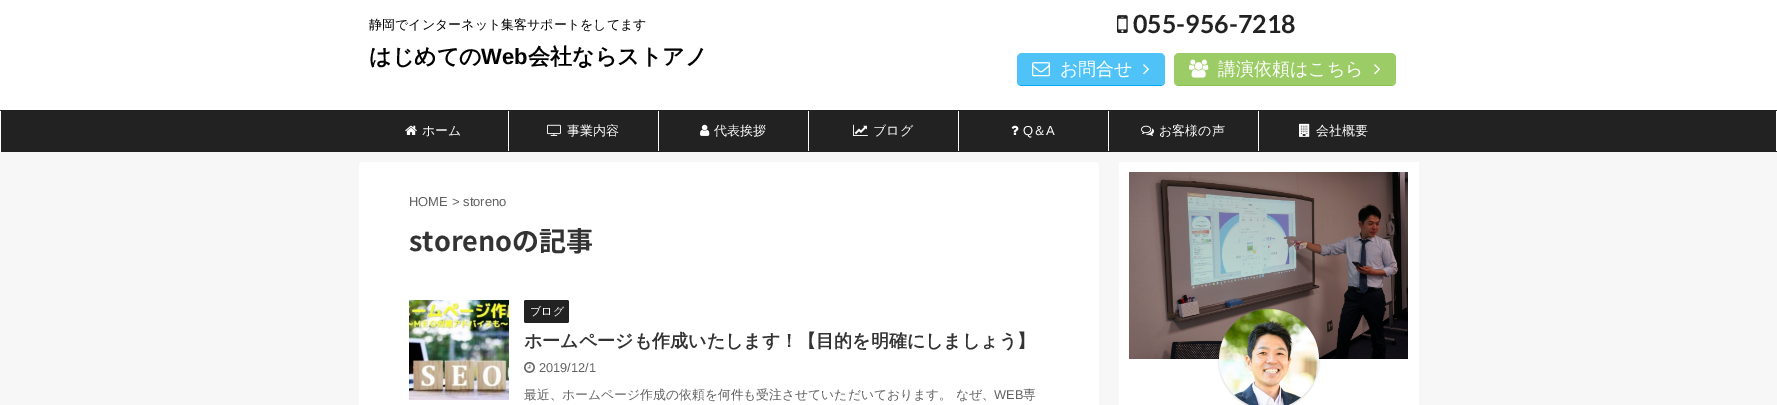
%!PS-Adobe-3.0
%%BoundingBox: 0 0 1777 405
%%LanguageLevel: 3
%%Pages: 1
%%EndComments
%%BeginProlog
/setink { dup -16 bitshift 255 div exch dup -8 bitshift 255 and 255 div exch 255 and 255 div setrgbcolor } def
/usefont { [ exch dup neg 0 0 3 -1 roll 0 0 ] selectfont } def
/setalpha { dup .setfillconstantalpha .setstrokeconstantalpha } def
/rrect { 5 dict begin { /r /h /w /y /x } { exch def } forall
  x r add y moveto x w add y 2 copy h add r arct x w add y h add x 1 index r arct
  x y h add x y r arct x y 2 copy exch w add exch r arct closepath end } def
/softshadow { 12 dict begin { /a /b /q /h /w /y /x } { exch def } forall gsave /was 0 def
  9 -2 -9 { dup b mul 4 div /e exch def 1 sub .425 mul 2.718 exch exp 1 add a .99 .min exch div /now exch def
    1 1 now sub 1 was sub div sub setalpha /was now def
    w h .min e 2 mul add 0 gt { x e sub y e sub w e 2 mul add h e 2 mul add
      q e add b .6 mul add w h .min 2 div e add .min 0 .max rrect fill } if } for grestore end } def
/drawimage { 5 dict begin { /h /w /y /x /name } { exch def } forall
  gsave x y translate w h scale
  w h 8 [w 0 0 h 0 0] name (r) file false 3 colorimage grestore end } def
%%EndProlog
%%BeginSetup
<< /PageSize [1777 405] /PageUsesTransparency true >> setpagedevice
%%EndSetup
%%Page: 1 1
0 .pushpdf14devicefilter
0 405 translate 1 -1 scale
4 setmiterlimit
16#F7F7F7 setink
0 0 1777 405 rectfill
16#FFFFFF setink
0 0 1777 110 rectfill
/WenQuanYiZenHei-Medium 13 usefont
16#000000 setink
369 29 moveto (静岡でインターネット集客サポートをしてます) show
/WenQuanYiZenHei-Bold 22 usefont
369 64 moveto (はじめての) show
/LiberationSans-Bold 22 usefont
481 64 moveto (Web) show
/WenQuanYiZenHei-Bold 22 usefont
528 64 moveto (会社ならストアノ) show
(img1.raw) 1117 15 11 18 drawimage
/Lato-Bold 25 usefont
16#222222 setink
1133 33 moveto (055-956-7218) show
16#03A9F4 setink
1017 80 moveto 1017 81 lineto 1017 84 1019 86 1022 86 curveto 1160 86 lineto 1163 86 1165 84 1165 81 curveto 1165 80 lineto 1165 83 1163 85 1160 85 curveto 1022 85 lineto 1019 85 1017 83 1017 80 curveto closepath fill
16#4FC3F7 setink
1017 53 148 32 5 rrect fill
(img2.raw) 1032 62 18 15 drawimage
/WenQuanYiZenHei-Medium 18 usefont
16#FFFFFF setink
1060 75 moveto (お問合せ) show
(img3.raw) 1143 64 6 11 drawimage
16#8BC34A setink
1174 80 moveto 1174 81 lineto 1174 84 1176 86 1179 86 curveto 1391 86 lineto 1394 86 1396 84 1396 81 curveto 1396 80 lineto 1396 83 1394 85 1391 85 curveto 1179 85 lineto 1176 85 1174 83 1174 80 curveto closepath fill
16#9CCC65 setink
1174 53 222 32 5 rrect fill
(img4.raw) 1189 59 20 19 drawimage
16#FFFFFF setink
1218 75 moveto (講演依頼はこちら) show
(img5.raw) 1374 64 6 11 drawimage
16#222222 setink
0 110 1777 42 1 rrect fill
[
    [1776 110 1 1 16#222222]
    [1776 111 1 41 16#FFFFFF]
    [1776 151 1 1 16#222222]
    [0 111 1 41 16#FFFFFF]
    [508 111 1 40 16#FFFFFF]
] { aload pop setink rectfill } forall
(img6.raw) 405 125 12 10 drawimage
/WenQuanYiZenHei-Medium 13 usefont
422 135 moveto (ホーム) show
658 111 1 40 rectfill
(img7.raw) 547 124 14 12 drawimage
567 135 moveto (事業内容) show
808 111 1 40 rectfill
(img8.raw) 700 124 10 12 drawimage
714 135 moveto (代表挨拶) show
958 111 1 40 rectfill
(img9.raw) 853 124 15 12 drawimage
873 135 moveto (ブログ) show
1108 111 1 40 rectfill
(img10.raw) 1011 125 8 10 drawimage
/LiberationSans-Regular 13 usefont
1023 135 moveto (Q) show
/WenQuanYiZenHei-Medium 13 usefont
1033 135 moveto (＆) show
/LiberationSans-Regular 13 usefont
1046 135 moveto (A) show
1258 111 1 40 rectfill
(img11.raw) 1141 125 13 11 drawimage
/WenQuanYiZenHei-Medium 13 usefont
1159 135 moveto (お客様の声) show
(img12.raw) 1299 123 11 14 drawimage
1316 135 moveto (会社概要) show
359 162 740 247 4 rrect fill
/LiberationSans-Regular 13 usefont
16#616161 setink
409 206 moveto (HOME >) show
463 206 moveto (storeno) show
/NotoSansJP-Bold 27 usefont
16#333333 setink
409 251 moveto (storenoの記事) show
(img13.raw) 409 300 100 100 drawimage
16#222222 setink
524 300 45 23 2 rrect fill
/WenQuanYiZenHei-Medium 11 usefont
16#FFFFFF setink
530 315 moveto (ブログ) show
/WenQuanYiZenHei-Bold 18 usefont
16#333333 setink
524 347 moveto (ホームページも作成いたします！【目的を明確にしましょう】) show
(img14.raw) 524 361 11 12 drawimage
/LiberationSans-Regular 12.8 usefont
16#616161 setink
539 372 moveto (2019/12/1) show
/WenQuanYiZenHei-Medium 12.8 usefont
524 399 moveto (最近、ホームページ作成の依頼を何件も受注させていただいております。 なぜ、) show
/LiberationSans-Regular 12.8 usefont
994 399 moveto (WEB) show
/WenQuanYiZenHei-Medium 12.8 usefont
1023 399 moveto (専) show
16#FFFFFF setink
1119 162 300 243 rectfill
(img15.raw) 1129 172 279 187 drawimage
16#000000 setink
1219 310 100 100 50 1 0.2 softshadow
(img16.raw) 1219 309 100 96 drawimage
.poppdf14devicefilter showpage
%%EOF
